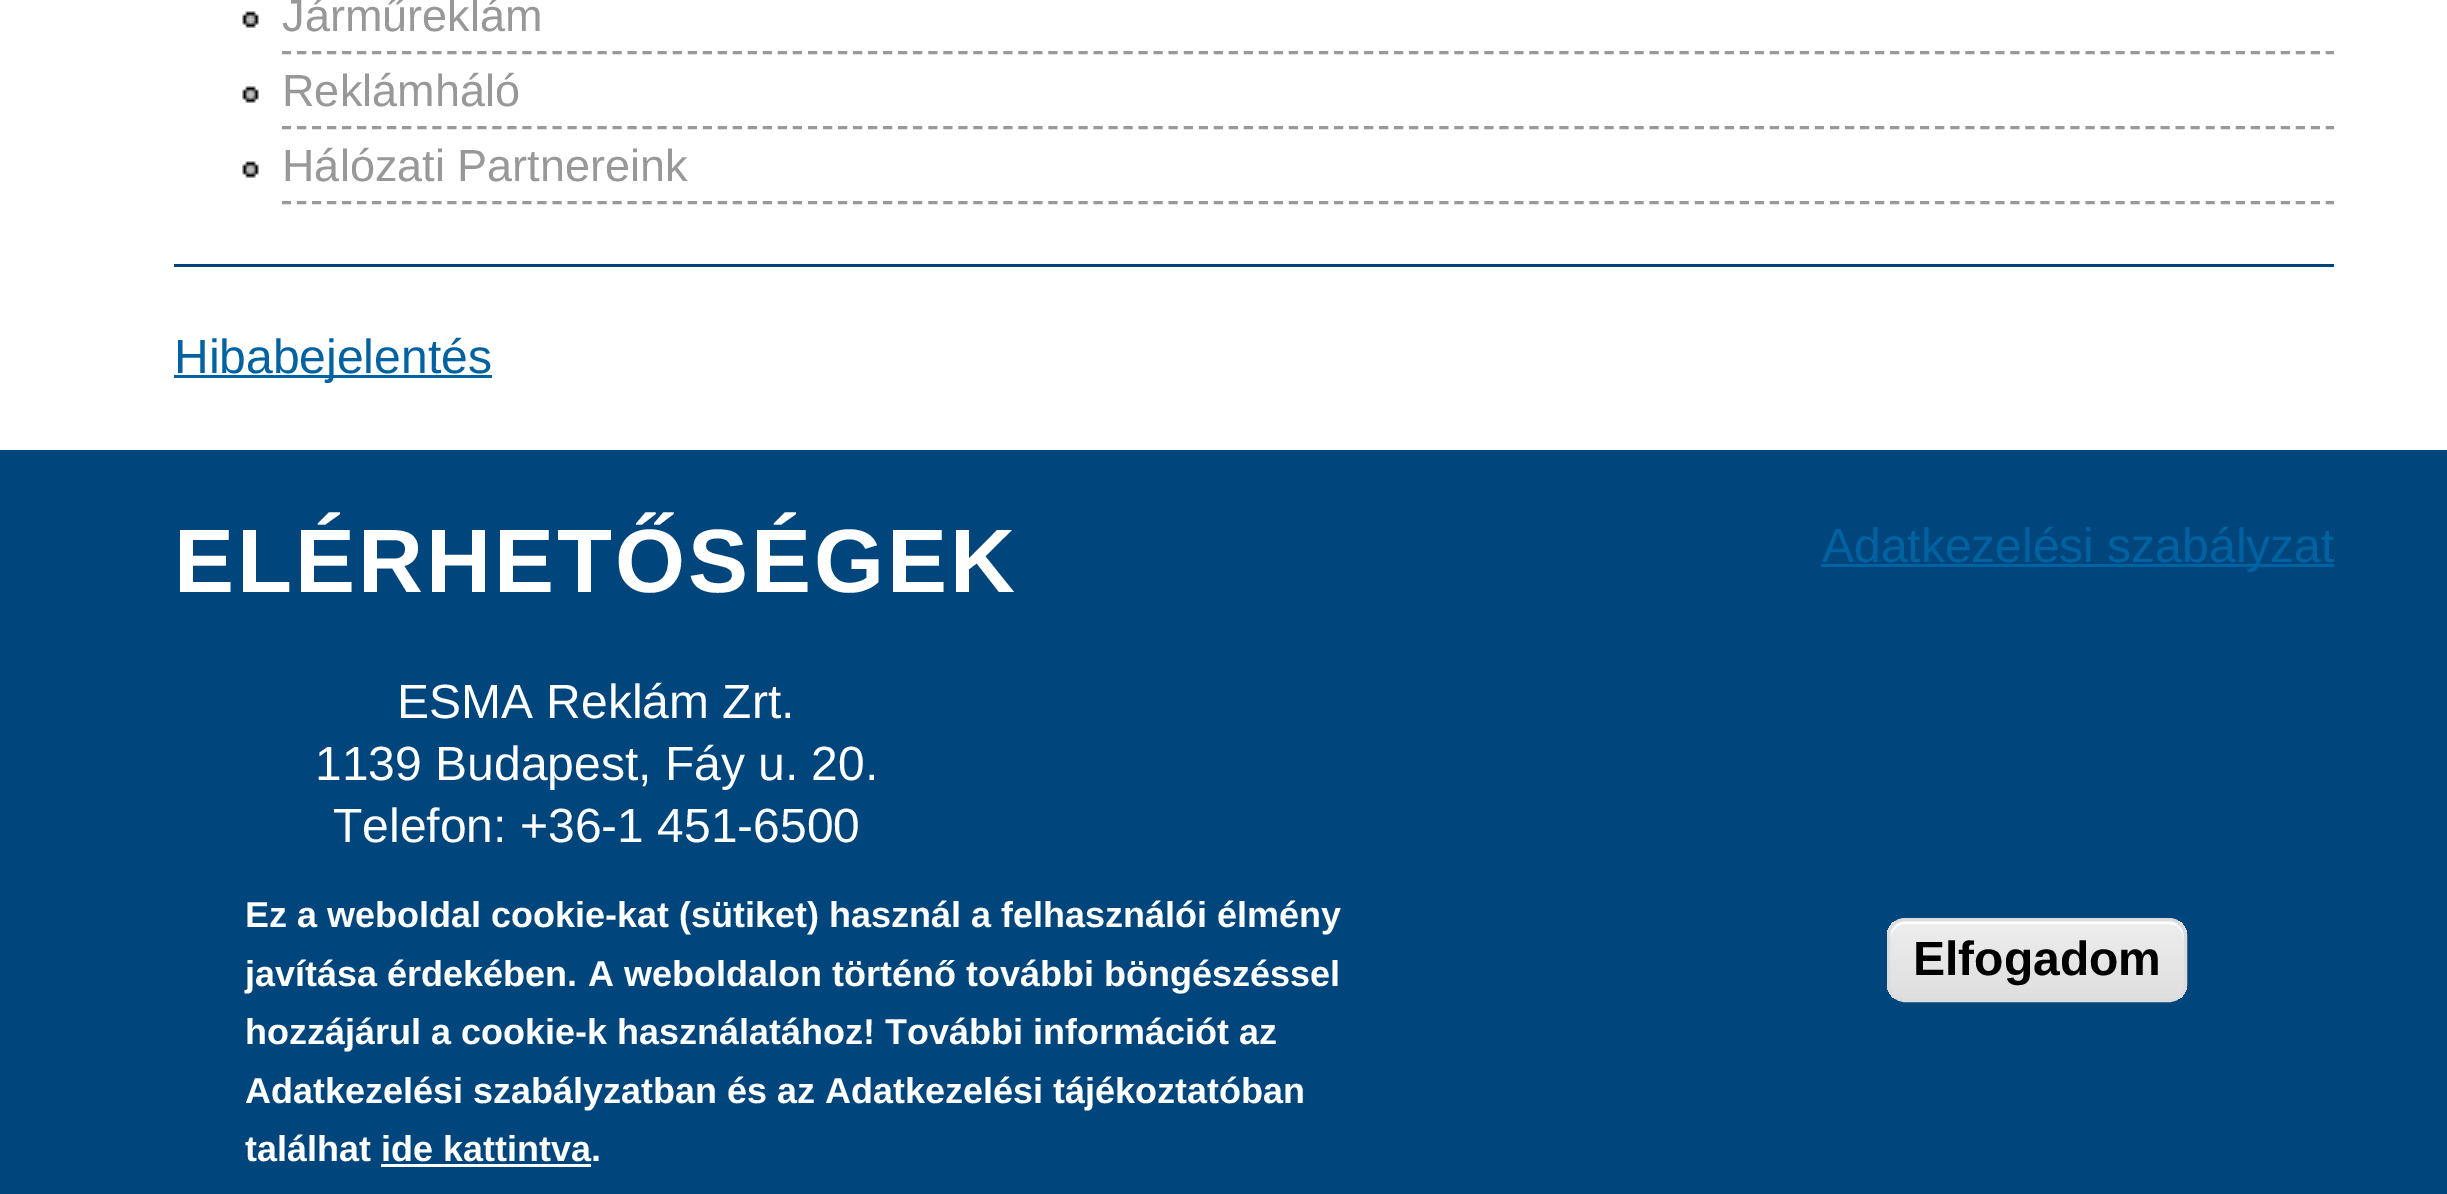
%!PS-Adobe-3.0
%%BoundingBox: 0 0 2447 1194
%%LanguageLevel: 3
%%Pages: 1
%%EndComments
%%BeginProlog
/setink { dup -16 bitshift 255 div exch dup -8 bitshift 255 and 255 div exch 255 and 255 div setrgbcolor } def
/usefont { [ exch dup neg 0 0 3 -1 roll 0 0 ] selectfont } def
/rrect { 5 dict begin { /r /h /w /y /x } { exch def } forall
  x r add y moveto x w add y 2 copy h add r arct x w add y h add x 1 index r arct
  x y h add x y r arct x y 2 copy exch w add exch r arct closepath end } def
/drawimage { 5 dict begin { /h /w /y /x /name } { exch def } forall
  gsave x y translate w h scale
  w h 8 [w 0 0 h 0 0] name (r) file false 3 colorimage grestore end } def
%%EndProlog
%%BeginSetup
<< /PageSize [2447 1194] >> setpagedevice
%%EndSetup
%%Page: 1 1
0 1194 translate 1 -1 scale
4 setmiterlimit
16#FFFFFF setink
0 0 2447 1194 rectfill
16#00457C setink
174 264 2160 3 rectfill
16#999999 setink
3 setlinewidth
[9 6.03] 0 setdash
282 52.5 moveto 2334 52.5 lineto stroke
(img1.raw) 242 11 17 17 drawimage
/LiberationSans-Regular 45 usefont
16#989898 setink
282 31 moveto (Járműreklám) show
16#999999 setink
282 127.5 moveto 2334 127.5 lineto stroke
(img1.raw) 242 86 17 17 drawimage
16#989898 setink
282 106 moveto (Reklámháló) show
16#999999 setink
282 202.5 moveto 2334 202.5 lineto stroke
(img1.raw) 242 161 17 17 drawimage
16#989898 setink
282 181 moveto (Hálózati Partnereink) show
16#0062A0 setink
174 375 318 3 rectfill
/LiberationSans-Regular 48 usefont
174 373 moveto (Hibabejelentés) show
16#00457C setink
0 450 2447 744 rectfill
/LiberationSans-Bold 90 usefont
16#FFFFFF setink
174 592 moveto 3 0 (ELÉRHETŐSÉGEK) ashow
/LiberationSans-Regular 48 usefont
[
    [(ESMA Reklám Zrt.) 397 718]
    [(1139 Budapest, Fáy u. 20.) 315 780]
    [(Telefon: +36-1 451-6500) 333 842]
] { aload pop moveto show } forall
16#0062A0 setink
1821 564 513 3 rectfill
1822 562 moveto (Adatkezelési szabályzat) show
/LiberationSans-Bold 36 usefont
16#FFFFFF setink
[
    [(Ez a weboldal cookie-kat \(sütiket\) használ a felhasználói élmény) 245 927]
    [(javítása érdekében.) 245 986]
    [(A weboldalon történő további böngészéssel) 588 986]
    [(hozzájárul a cookie-k használatához! További információt az) 245 1044]
    [(Adatkezelési szabályzatban és az Adatkezelési tájékoztatóban) 245 1103]
    [(találhat ide kattintva.) 245 1161]
] { aload pop moveto show } forall
381 1164 210 3 rectfill
gsave
1887 918 300 84 18 rrect clip newpath
gsave 1887 921 moveto 2187 921 lineto 2187 999 lineto 1887 999 lineto closepath clip newpath
<< /ShadingType 2 /ColorSpace /DeviceRGB /Coords [2037 921 2037 999] /Extend [true true] /Function << /FunctionType 3 /Domain [0 1] /Functions [<< /FunctionType 2 /Domain [0 1] /C0 [0.929 0.929 0.929] /C1 [0.929 0.929 0.929] /N 1 >> << /FunctionType 2 /Domain [0 1] /C0 [0.929 0.929 0.929] /C1 [0.875 0.875 0.875] /N 1 >>] /Bounds [0.05] /Encode [0 1 0 1] >> >> shfill grestore
grestore
1905 924 moveto 2169 924 lineto 2177 924 2184 931 2184 939 curveto 2184 936 lineto 2184 928 2177 921 2169 921 curveto 1905 921 lineto 1897 921 1890 928 1890 936 curveto 1890 939 lineto 1890 931 1897 924 1905 924 curveto closepath fill
16#DCDCDC setink
[] 0 setdash
1888.5 919.5 297 81 16.5 rrect stroke
/LiberationSans-Bold 48 usefont
16#000000 setink
1913 975 moveto (Elfogadom) show
showpage
%%EOF
